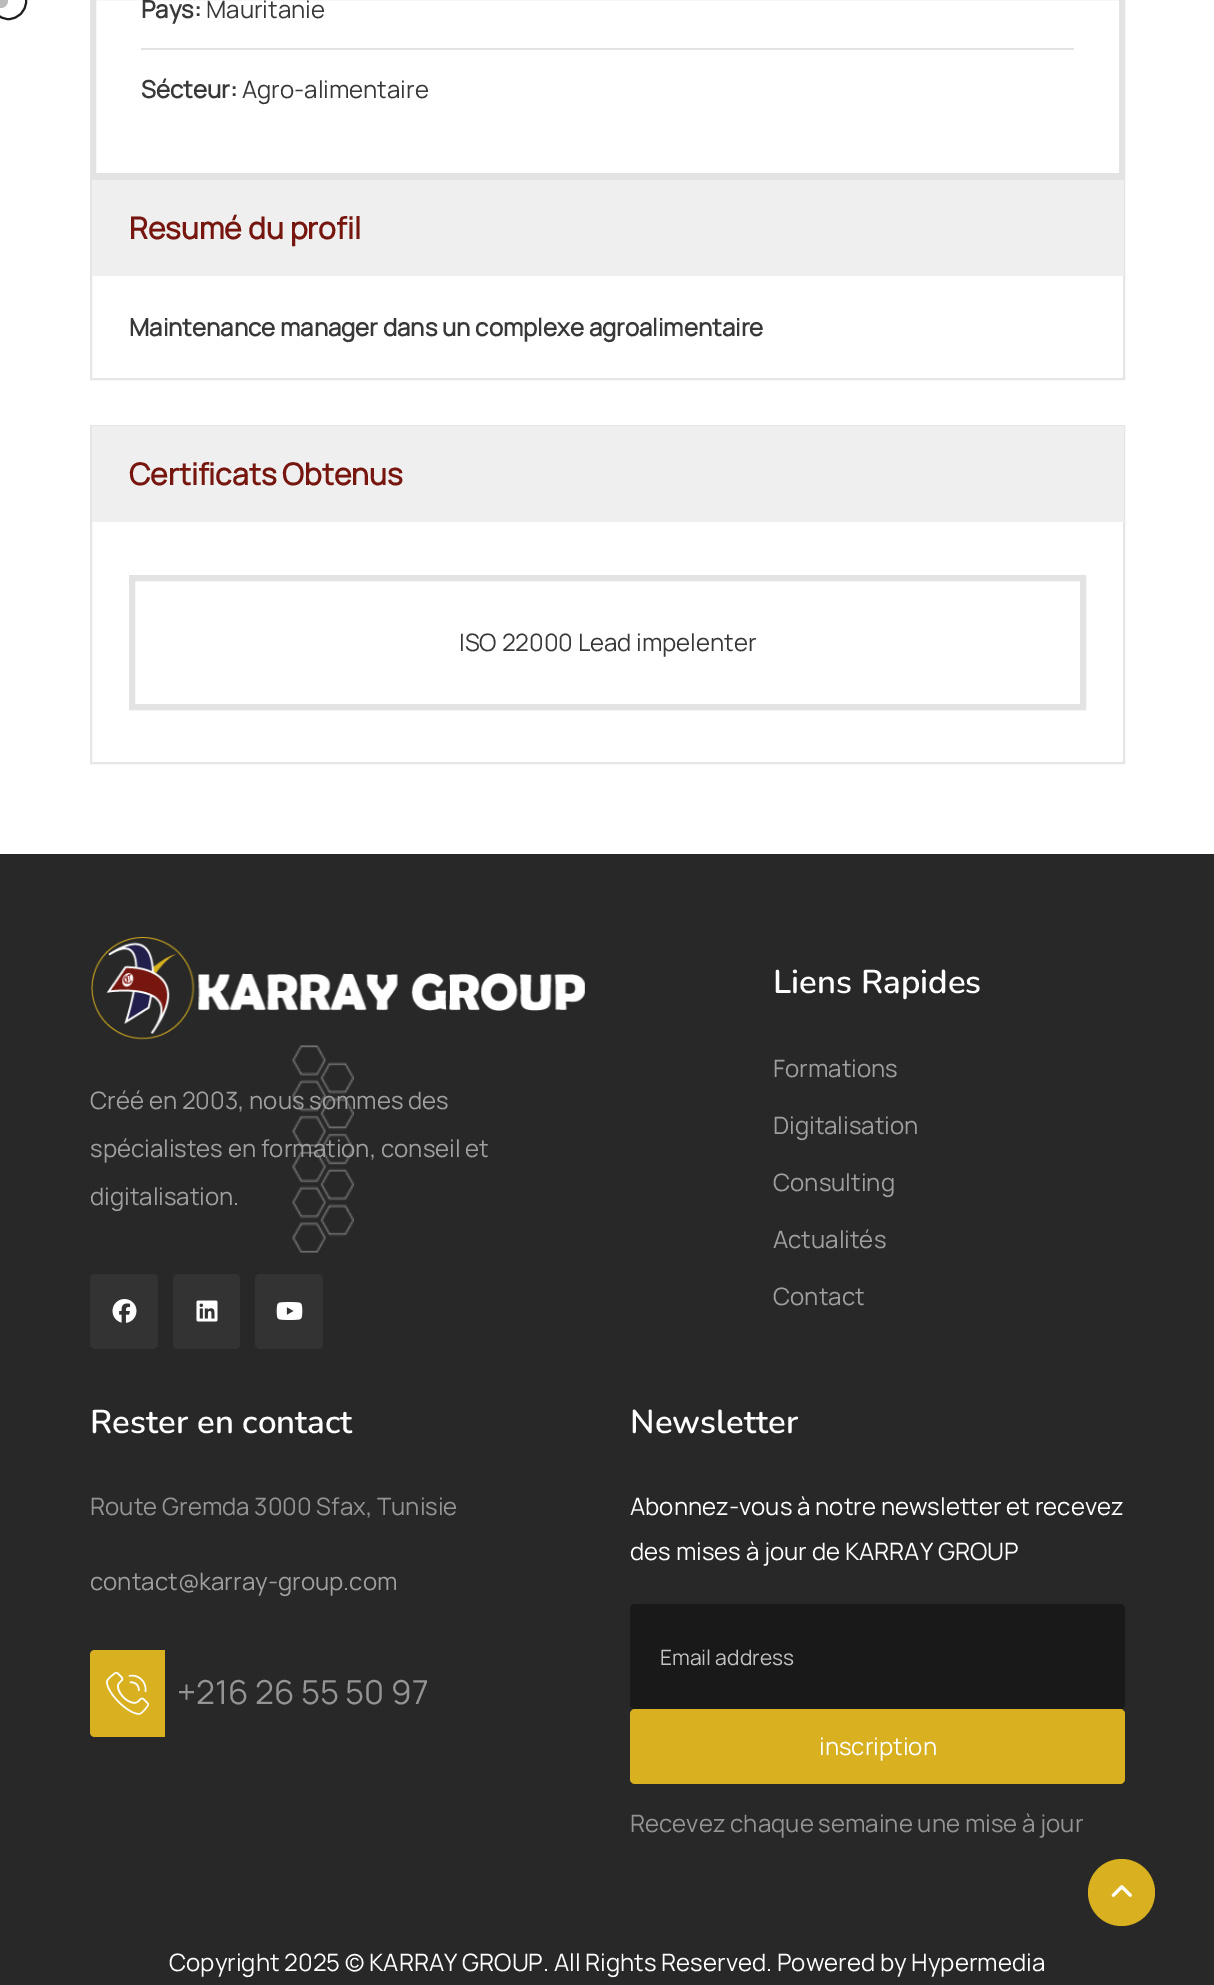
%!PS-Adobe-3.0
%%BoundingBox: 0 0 1214 1985
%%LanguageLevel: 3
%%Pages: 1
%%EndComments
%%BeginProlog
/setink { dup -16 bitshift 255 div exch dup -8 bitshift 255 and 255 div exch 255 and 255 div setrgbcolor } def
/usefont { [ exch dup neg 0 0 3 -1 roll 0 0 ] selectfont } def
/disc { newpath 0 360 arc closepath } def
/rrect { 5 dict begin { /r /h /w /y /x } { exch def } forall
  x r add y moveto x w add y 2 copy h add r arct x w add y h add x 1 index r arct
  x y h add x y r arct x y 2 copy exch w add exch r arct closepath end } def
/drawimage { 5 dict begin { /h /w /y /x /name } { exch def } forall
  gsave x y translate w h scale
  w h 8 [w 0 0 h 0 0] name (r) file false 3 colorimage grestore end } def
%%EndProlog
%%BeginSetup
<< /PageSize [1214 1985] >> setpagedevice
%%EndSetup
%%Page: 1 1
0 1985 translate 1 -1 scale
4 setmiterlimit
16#FFFFFF setink
0 0 1214 1985 rectfill
16#1D1D1D setink
2 setlinewidth
-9 -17 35 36 17.5 rrect stroke
16#BBBBBB setink
0.5 0.5 7.5 disc fill
16#E3E3E3 setink
6 setlinewidth
93 -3 1029 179 rectstroke
/Manrope-Bold 24 usefont
16#383838 setink
141 18 moveto (Pays:) show
/Manrope-ExtraLight 24 usefont
206 18 moveto (Mauritanie) show
16#E3E3E3 setink
141 48 933 2 rectfill
/Manrope-Bold 24 usefont
16#383838 setink
141 98 moveto (Sécteur:) show
/Manrope-ExtraLight 24 usefont
242 98 moveto (Agro-alimentaire) show
16#E5E5E5 setink
2 setlinewidth
91 180 1033 199 rectstroke
16#EFEFEF setink
92 180 1032 96 rectfill
/Manrope-Bold 30 usefont
16#76160E setink
129 239 moveto (Resumé du profil) show
/Manrope-Bold 24 usefont
16#383838 setink
129 336 moveto (Maintenance manager dans un complexe agroalimentaire) show
16#E5E5E5 setink
91 426 1033 337 rectstroke
16#EFEFEF setink
92 426 1032 96 rectfill
/Manrope-Bold 30 usefont
16#76160E setink
129 485 moveto (Certificats Obtenus) show
16#E3E3E3 setink
6 setlinewidth
132 578 951 129 rectstroke
/Manrope-ExtraLight 24 usefont
16#383838 setink
459 651 moveto (ISO 22000 Lead impelenter) show
16#282828 setink
0 854 1214 1131 rectfill
(img1.raw) 91 937 494 103 drawimage
(img6.raw) 292 1045 62 208 drawimage
16#9F9F9F setink
[
    [(Créé en 2003, nous sommes des) 90 1109]
    [(spécialistes en formation, conseil et) 90 1157]
    [(digitalisation.) 90 1205]
] { aload pop moveto show } forall
16#343333 setink
90 1274 68 75 5 rrect fill
(img2.raw) 112 1299 25 24 drawimage
173 1274 67 75 5 rrect fill
(img3.raw) 196 1300 22 22 drawimage
255 1274 68 75 5 rrect fill
(img4.raw) 276 1302 27 18 drawimage
/Nunito-SemiBold 33 usefont
16#FFFFFF setink
773 993 moveto (Liens Rapides) show
/Manrope-ExtraLight 24 usefont
16#9F9F9F setink
[
    [(Formations) 773 1077]
    [(Digitalisation) 773 1134]
    [(Consulting) 773 1191]
    [(Actualités) 773 1248]
    [(Contact) 773 1305]
] { aload pop moveto show } forall
/Nunito-SemiBold 33 usefont
16#FFFFFF setink
90 1433 moveto (Rester en contact) show
/Manrope-ExtraLight 24 usefont
16#949494 setink
90 1515 moveto (Route Gremda 3000 Sfax, Tunisie) show
16#9F9F9F setink
90 1590 moveto (contact@karray-group.com) show
16#D8B020 setink
95 1650 moveto 165 1650 lineto 165 1737 lineto 95 1737 lineto 92 1737 90 1735 90 1732 curveto 90 1655 lineto 90 1652 92 1650 95 1650 curveto closepath fill
(img5.raw) 106 1671 43 44 drawimage
/Manrope-ExtraLight 33 usefont
16#949494 setink
177 1704 moveto (+216 26 55 50 97) show
/Nunito-SemiBold 33 usefont
16#FFFFFF setink
630 1433 moveto (Newsletter) show
/Manrope-ExtraLight 24 usefont
630 1515 moveto (Abonnez-vous à notre newsletter et recevez) show
630 1560 moveto (des mises à jour de KARRAY GROUP) show
16#191919 setink
630 1604 495 105 5 rrect fill
/Manrope-ExtraLight 21 usefont
16#C3C3C3 setink
660 1665 moveto (Email address) show
16#D8B020 setink
630 1709 495 75 5 rrect fill
/Manrope-ExtraLight 24 usefont
16#FFFFFF setink
819 1755 moveto (inscription) show
16#949494 setink
630 1832 moveto (Recevez chaque semaine une mise à jour) show
16#FFFFFF setink
169 1971 moveto (Copyright 2025 © KARRAY GROUP. All Rights Reserved. Powered by Hypermedia) show
16#D8B020 setink
1121.5 1892.5 33.5 disc fill
(img7.raw) 1111 1885 21 12 drawimage
showpage
%%EOF
